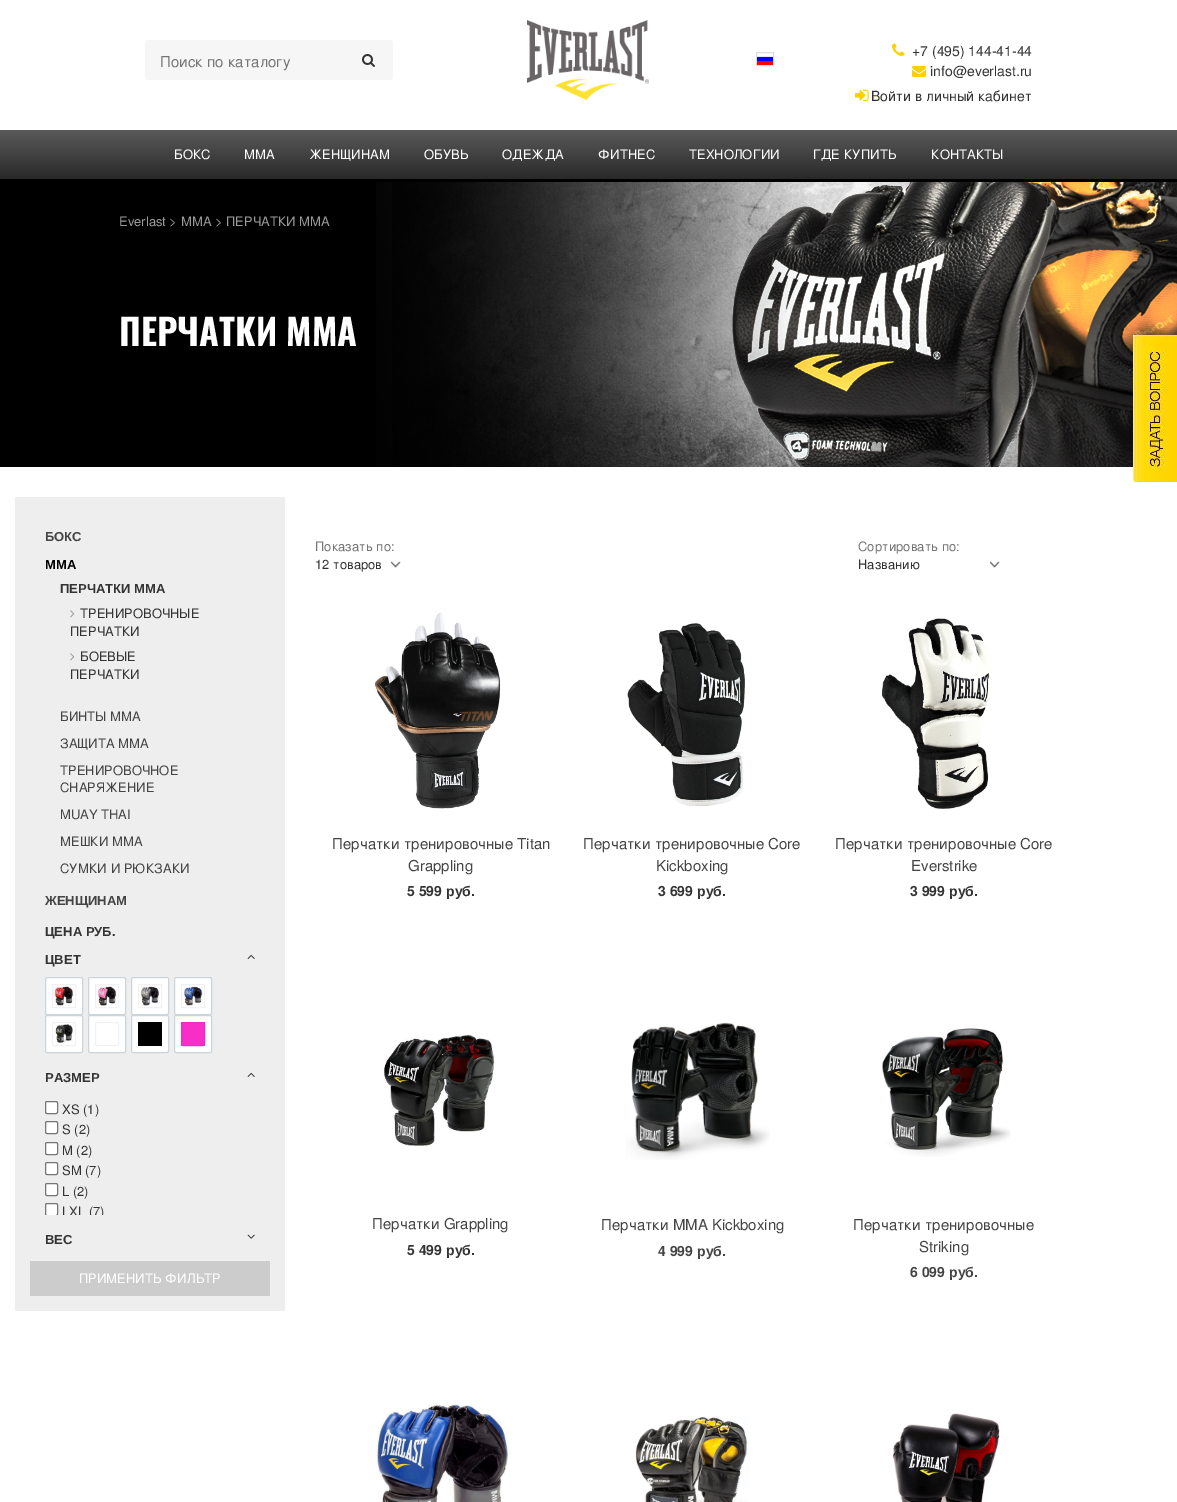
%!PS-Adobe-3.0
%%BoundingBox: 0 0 1177 1502
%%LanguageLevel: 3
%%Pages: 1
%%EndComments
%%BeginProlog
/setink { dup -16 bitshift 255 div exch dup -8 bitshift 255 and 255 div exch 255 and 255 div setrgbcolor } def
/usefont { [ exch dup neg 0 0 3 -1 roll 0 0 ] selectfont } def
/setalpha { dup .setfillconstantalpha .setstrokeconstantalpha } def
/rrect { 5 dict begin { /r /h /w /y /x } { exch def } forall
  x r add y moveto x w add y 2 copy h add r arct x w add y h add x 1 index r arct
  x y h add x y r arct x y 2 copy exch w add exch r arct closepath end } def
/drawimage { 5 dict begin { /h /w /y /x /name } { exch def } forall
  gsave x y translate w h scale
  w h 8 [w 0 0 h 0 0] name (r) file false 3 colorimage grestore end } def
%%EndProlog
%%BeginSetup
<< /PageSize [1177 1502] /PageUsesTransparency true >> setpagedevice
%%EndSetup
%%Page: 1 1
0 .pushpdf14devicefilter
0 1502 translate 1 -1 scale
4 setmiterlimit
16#FFFFFF setink
0 0 1177 1502 rectfill
16#F6F6F6 setink
145 40 248 40 3 rrect fill
/TeXGyreHeros-Regular 15 usefont
16#757575 setink
160 67 moveto (Поиск по каталогу) show
(img1.raw) 362 54 13 13 drawimage
(img2.raw) 527 20 122 80 drawimage
16#DDDDDD setink
756.5 52.5 17 13 rectstroke
(img3.raw) 757 56 16 9 drawimage
(img4.raw) 892 43 13 13 drawimage
/TeXGyreHeros-Regular 14 usefont
16#333333 setink
912 56 moveto (+7 \(495\) 144-41-44) show
(img5.raw) 912 66 14 11 drawimage
930 76 moveto (info@everlast.ru) show
(img6.raw) 855 89 14 12 drawimage
871 101 moveto (Войти в личный кабинет) show
gsave 0 130 moveto 1177 130 lineto 1177 179 lineto 0 179 lineto closepath clip newpath
<< /ShadingType 2 /ColorSpace /DeviceRGB /Coords [589 130 589 179] /Extend [true true] /Function << /FunctionType 2 /Domain [0 1] /C0 [0.353 0.353 0.353] /C1 [0.161 0.161 0.161] /N 1 >> >> shfill grestore
16#000000 setink
0 179 1177 3 rectfill
/TeXGyreHeros-Regular 13 usefont
16#FFFFFF setink
[
    [(БОКС) 174 159]
    [(ММА) 244 159]
    [(ЖЕНЩИНАМ) 309 159]
    [(ОБУВЬ) 424 159]
    [(ОДЕЖДА) 502 159]
    [(ФИТНЕС) 598 159]
    [(ТЕХНОЛОГИИ) 689 159]
    [(ГДЕ КУПИТЬ) 813 159]
    [(КОНТАКТЫ) 931 159]
] { aload pop moveto show } forall
16#000000 setink
0 182 376 285 rectfill
(img7.raw) 376 182 801 285 drawimage
16#999999 setink
119 226 moveto (Everlast) show
/TeXGyreHeros-Italic 13 usefont
169 226 moveto (>) show
/TeXGyreHeros-Regular 13 usefont
181 226 moveto (ММА) show
/TeXGyreHeros-Italic 13 usefont
215 226 moveto (>) show
/TeXGyreHeros-Regular 13 usefont
226 226 moveto (ПЕРЧАТКИ MMA) show
/Oswald-Bold 36 usefont
16#FFFFFF setink
119 346 moveto (ПЕРЧАТКИ MMA) show
(img8.raw) 1133 335 44 147 drawimage
16#EEEEEE setink
15 497 270 814 rectfill
/LiberationSans-Bold 13 usefont
16#444444 setink
45 541 moveto (БОКС) show
16#000000 setink
45 569 moveto (ММА) show
16#333333 setink
60 593 moveto (ПЕРЧАТКИ MMA) show
(img9.raw) 70 610 5 8 drawimage
/TeXGyreHeros-Regular 13 usefont
80 618 moveto (ТРЕНИРОВОЧНЫЕ) show
70 636 moveto (ПЕРЧАТКИ) show
(img9.raw) 70 653 5 8 drawimage
80 661 moveto (БОЕВЫЕ) show
70 679 moveto (ПЕРЧАТКИ) show
16#444444 setink
[
    [(БИНТЫ ММА) 60 721]
    [(ЗАЩИТА ММА) 60 748]
    [(ТРЕНИРОВОЧНОЕ) 60 775]
    [(СНАРЯЖЕНИЕ) 60 792]
    [(MUAY THAI) 60 819]
    [(МЕШКИ ММА) 60 846]
    [(СУМКИ И РЮКЗАКИ) 60 873]
] { aload pop moveto show } forall
/LiberationSans-Bold 13 usefont
45 905 moveto (ЖЕНЩИНАМ) show
16#333333 setink
45 936 moveto (ЦЕНА РУБ.) show
45 964 moveto (ЦВЕТ) show
(img10.raw) 247 954 8 5 drawimage
16#FFFFFF setink
45.5 977.5 37 37 1.5 rrect gsave fill grestore
16#CCD5DB setink
stroke
(img11.raw) 52 984 22 22 drawimage
0.05 setalpha
16#000000 setink
52.5 984.5 23 23 rectstroke
1 setalpha
16#FFFFFF setink
88.5 977.5 37 37 1.5 rrect gsave fill grestore
16#CCD5DB setink
stroke
(img12.raw) 95 985 22 21 drawimage
0.05 setalpha
16#000000 setink
95.5 984.5 23 23 rectstroke
1 setalpha
16#FFFFFF setink
131.5 977.5 37 37 1.5 rrect gsave fill grestore
16#CCD5DB setink
stroke
(img13.raw) 138 986 22 20 drawimage
0.05 setalpha
16#000000 setink
138.5 984.5 23 23 rectstroke
1 setalpha
16#FFFFFF setink
174.5 977.5 37 37 1.5 rrect gsave fill grestore
16#CCD5DB setink
stroke
(img14.raw) 181 984 22 22 drawimage
0.05 setalpha
16#000000 setink
181.5 984.5 23 23 rectstroke
1 setalpha
16#FFFFFF setink
45.5 1015.5 37 37 1.5 rrect gsave fill grestore
16#CCD5DB setink
stroke
(img15.raw) 55 1024 18 20 drawimage
16#F2F2F2 setink
52.5 1022.5 23 23 1.5 rrect stroke
16#FFFFFF setink
88.5 1015.5 37 37 1.5 rrect gsave fill grestore
16#CCD5DB setink
stroke
16#F2F2F2 setink
95.5 1022.5 23 23 1.5 rrect stroke
16#FFFFFF setink
131.5 1015.5 37 37 1.5 rrect gsave fill grestore
16#CCD5DB setink
stroke
16#000000 setink
138 1022 24 24 rectfill
16#FFFFFF setink
174.5 1015.5 37 37 1.5 rrect gsave fill grestore
16#CCD5DB setink
stroke
16#F92EC8 setink
181 1022 24 24 rectfill
16#ED2CBE setink
181.5 1022.5 23 23 1.5 rrect stroke
16#333333 setink
45 1082 moveto (РАЗМЕР) show
(img10.raw) 247 1072 8 5 drawimage
16#FFFFFF setink
45.5 1101.5 12 12 1.5 rrect gsave fill grestore
16#767676 setink
stroke
/TeXGyreHeros-Regular 13 usefont
16#333333 setink
62 1114 moveto (XS \(1\)) show
16#FFFFFF setink
45.5 1121.5 12 12 1.5 rrect gsave fill grestore
16#767676 setink
stroke
16#333333 setink
62 1134 moveto (S \(2\)) show
16#FFFFFF setink
45.5 1142.5 12 12 1.5 rrect gsave fill grestore
16#767676 setink
stroke
16#333333 setink
62 1155 moveto (M \(2\)) show
16#FFFFFF setink
45.5 1162.5 12 12 1.5 rrect gsave fill grestore
16#767676 setink
stroke
16#333333 setink
62 1175 moveto (SM \(7\)) show
16#FFFFFF setink
45.5 1183.5 12 12 1.5 rrect gsave fill grestore
16#767676 setink
stroke
16#333333 setink
62 1196 moveto (L \(2\)) show
gsave
30 1095 240 120 rectclip
16#FFFFFF setink
45.5 1203.5 12 12 1.5 rrect gsave fill grestore
16#767676 setink
stroke
16#333333 setink
62 1216 moveto (LXL \(7\)) show
grestore
/LiberationSans-Bold 13 usefont
45 1244 moveto (ВЕС) show
(img16.raw) 247 1234 8 5 drawimage
16#CCCCCC setink
30 1261 240 35 rectfill
/TeXGyreHeros-Regular 13 usefont
16#FFFFFF setink
79 1283 moveto (ПРИМЕНИТЬ ФИЛЬТР) show
16#757575 setink
315 551 moveto (Показать по:) show
(img17.raw) 390 561 11 7 drawimage
16#333333 setink
315 569 moveto (12 товаров) show
16#757575 setink
858 551 moveto (Сортировать по:) show
(img17.raw) 989 561 11 7 drawimage
16#333333 setink
858 569 moveto (Названию) show
(img18.raw) 375 612 126 197 drawimage
/TeXGyreHeros-Regular 15 usefont
16#444444 setink
332 849 moveto (Перчатки тренировочные Titan) show
408 871 moveto (Grappling) show
/TeXGyreHeros-Bold 14 usefont
16#333333 setink
407 896 moveto (5 599) show
/LiberationSans-Bold 14 usefont
446 896 moveto (руб) show
/TeXGyreHeros-Bold 14 usefont
471 896 moveto (.) show
(img19.raw) 627 623 118 184 drawimage
/TeXGyreHeros-Regular 15 usefont
16#444444 setink
583 849 moveto (Перчатки тренировочные Core) show
656 871 moveto (Kickboxing) show
/TeXGyreHeros-Bold 14 usefont
16#333333 setink
658 896 moveto (3 699) show
/LiberationSans-Bold 14 usefont
697 896 moveto (руб) show
/TeXGyreHeros-Bold 14 usefont
722 896 moveto (.) show
(img20.raw) 881 618 112 191 drawimage
/TeXGyreHeros-Regular 15 usefont
16#444444 setink
835 849 moveto (Перчатки тренировочные Core) show
911 871 moveto (Everstrike) show
/TeXGyreHeros-Bold 14 usefont
16#333333 setink
910 896 moveto (3 999) show
/LiberationSans-Bold 14 usefont
949 896 moveto (руб) show
/TeXGyreHeros-Bold 14 usefont
974 896 moveto (.) show
(img21.raw) 383 1034 112 112 drawimage
/TeXGyreHeros-Regular 15 usefont
16#444444 setink
372 1229 moveto (Перчатки Grappling) show
/TeXGyreHeros-Bold 14 usefont
16#333333 setink
407 1255 moveto (5 499) show
/LiberationSans-Bold 14 usefont
446 1255 moveto (руб) show
/TeXGyreHeros-Bold 14 usefont
471 1255 moveto (.) show
(img22.raw) 626 1022 144 138 drawimage
/TeXGyreHeros-Regular 15 usefont
16#444444 setink
601 1230 moveto (Перчатки MMA Kickboxing) show
/TeXGyreHeros-Bold 14 usefont
658 1256 moveto (4 999) show
/LiberationSans-Bold 14 usefont
697 1256 moveto (руб) show
/TeXGyreHeros-Bold 14 usefont
722 1256 moveto (.) show
(img23.raw) 882 1028 129 129 drawimage
/TeXGyreHeros-Regular 15 usefont
853 1230 moveto (Перчатки тренировочные) show
919 1252 moveto (Striking) show
/TeXGyreHeros-Bold 14 usefont
910 1277 moveto (6 099) show
/LiberationSans-Bold 14 usefont
949 1277 moveto (руб) show
/TeXGyreHeros-Bold 14 usefont
974 1277 moveto (.) show
(img24.raw) 375 1402 136 100 drawimage
(img25.raw) 635 1416 114 86 drawimage
(img26.raw) 892 1413 108 89 drawimage
.poppdf14devicefilter showpage
%%EOF
